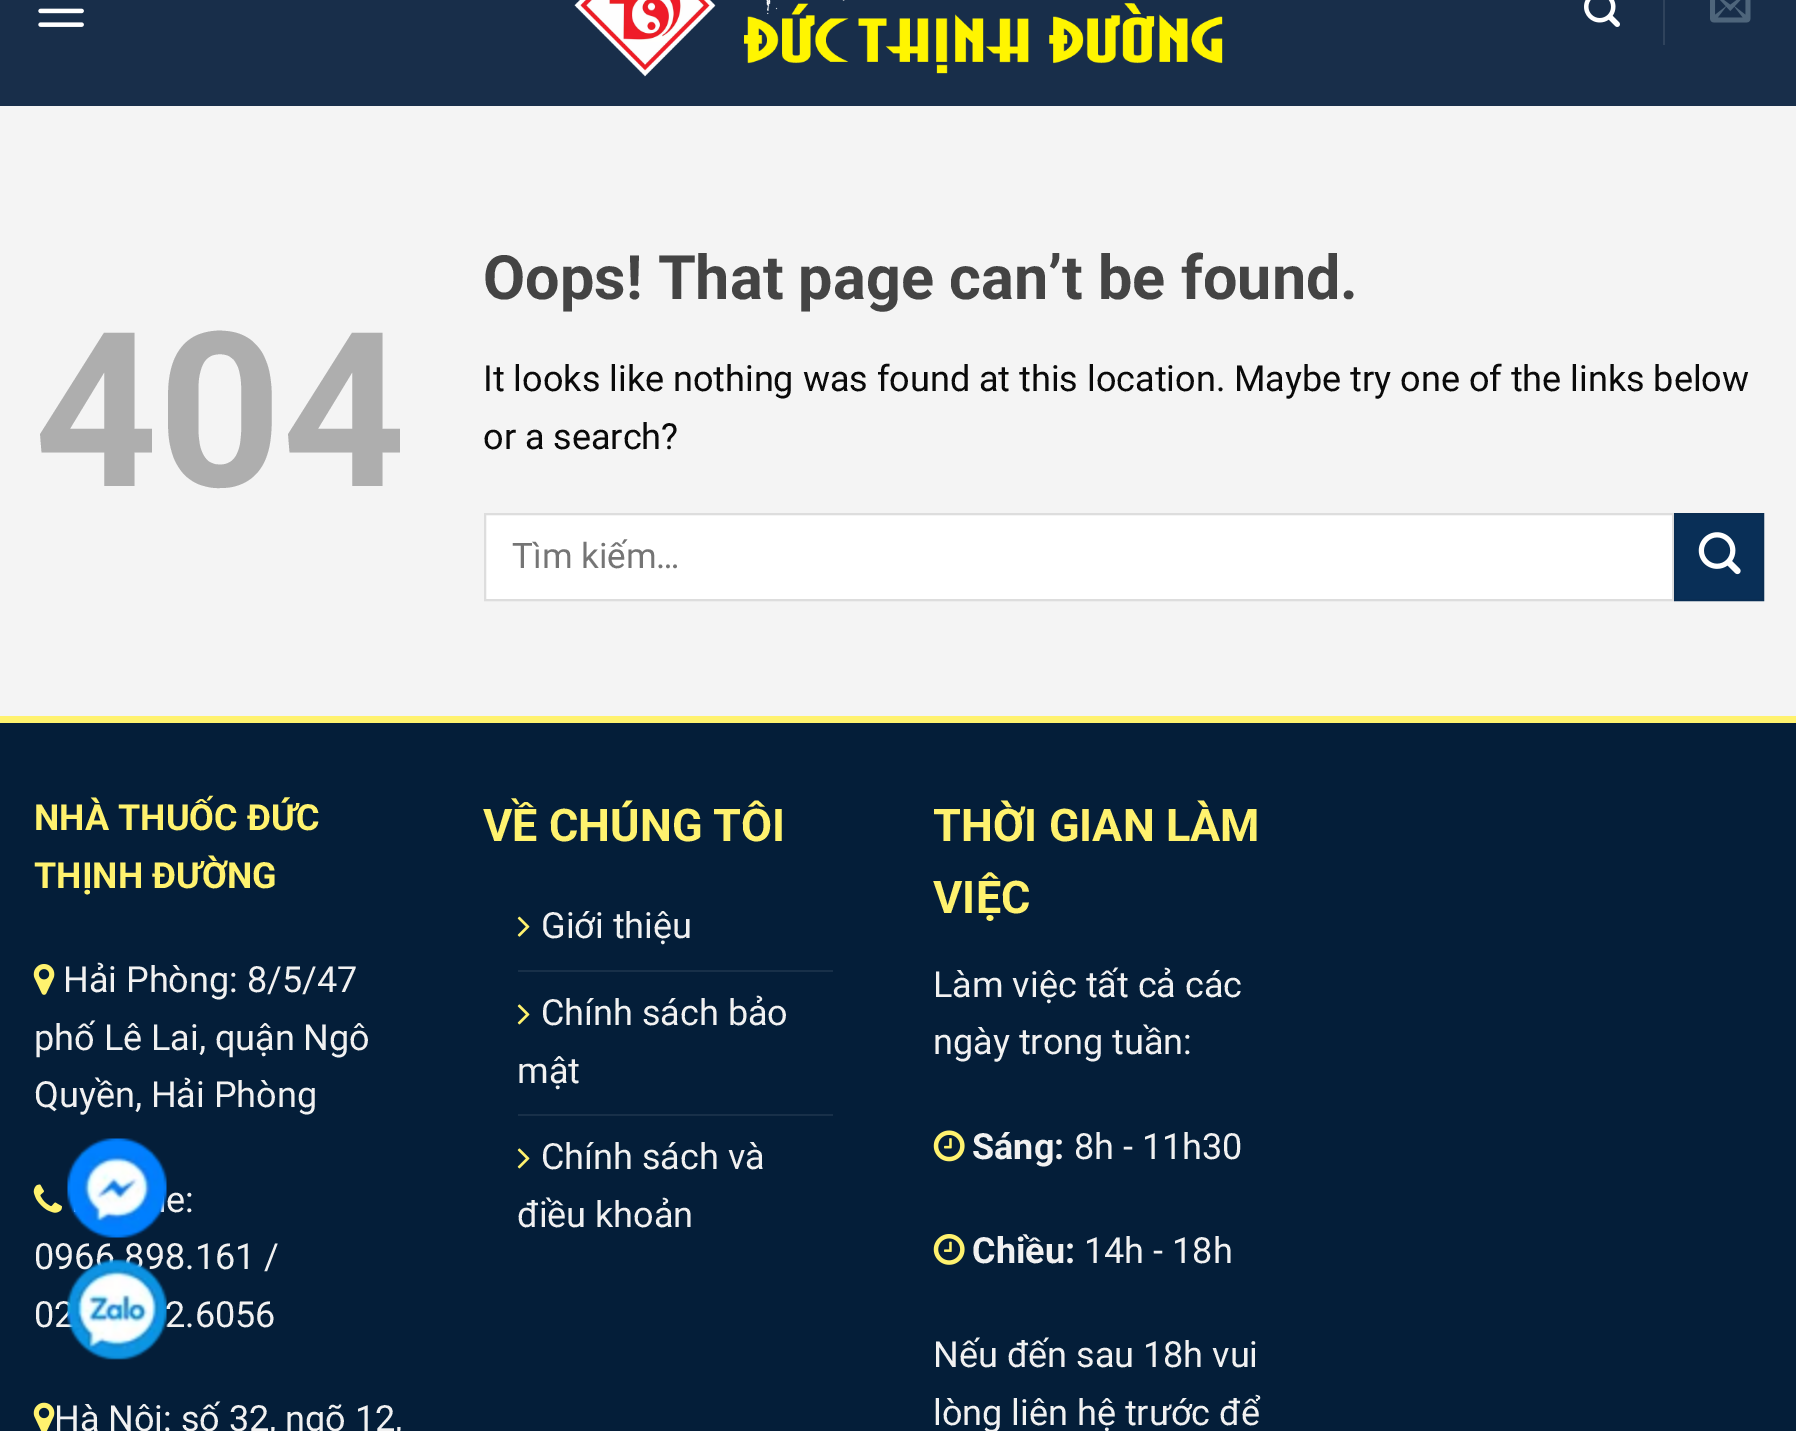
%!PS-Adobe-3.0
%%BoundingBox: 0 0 1796 1431
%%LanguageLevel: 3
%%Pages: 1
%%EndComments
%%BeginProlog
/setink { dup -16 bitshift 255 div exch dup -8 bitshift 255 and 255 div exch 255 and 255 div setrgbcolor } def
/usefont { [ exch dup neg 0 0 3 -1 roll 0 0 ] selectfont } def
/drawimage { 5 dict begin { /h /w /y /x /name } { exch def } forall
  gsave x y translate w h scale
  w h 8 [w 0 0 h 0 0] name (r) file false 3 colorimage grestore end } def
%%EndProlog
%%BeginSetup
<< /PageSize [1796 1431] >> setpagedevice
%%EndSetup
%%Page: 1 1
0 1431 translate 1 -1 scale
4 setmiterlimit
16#F4F4F4 setink
0 0 1796 1431 rectfill
16#182E4A setink
0 0 1796 106 rectfill
(img1.raw) 38 8 46 19 drawimage
(img2.raw) 574 0 649 77 drawimage
(img3.raw) 1584 0 36 27 drawimage
16#2F435C setink
1663 0 2 45 rectfill
(img4.raw) 1710 0 41 23 drawimage
/Roboto-Bold 216 usefont
16#AEAEAE setink
34 486 moveto (404) show
/Roboto-Bold 61.25 usefont
16#444444 setink
483 299 moveto (Oops! That page can’t be found.) show
/Roboto-Regular 36 usefont
16#0A0A0A setink
483 391 moveto (It looks like nothing was found at this location. Maybe try one of the links below) show
483 449 moveto (or a search?) show
16#FFFFFF setink
485 514 moveto 1673 514 lineto 1673 600 lineto 485 600 lineto closepath gsave fill grestore
16#DDDDDD setink
2 setlinewidth
stroke
/Roboto-Regular 35 usefont
16#757575 setink
512 568 moveto (Tìm kiếm…) show
16#092F57 setink
1675 514 moveto 1763 514 lineto 1763 600 lineto 1675 600 lineto closepath gsave fill grestore
16#092D53 setink
stroke
(img5.raw) 1698 532 43 43 drawimage
16#041E39 setink
0 723 1796 708 rectfill
16#FFF26E setink
0 716 1796 7 rectfill
/Roboto-Bold 36 usefont
34 830 moveto (NHÀ THUỐC ĐỨC) show
34 888 moveto (THỊNH ĐƯỜNG) show
(img6.raw) 33 964 22 31 drawimage
/Roboto-Regular 36 usefont
16#F1F1F1 setink
[
    [(Hải Phòng: 8/5/47) 63 992]
    [(phố Lê Lai, quận Ngô) 34 1050]
    [(Quyền, Hải Phòng) 34 1107]
] { aload pop moveto show } forall
(img7.raw) 33 1184 29 29 drawimage
[
    [(e:) 166 1212]
    [(0966.898.161 /) 34 1269]
    [(02) 34 1327]
    [(2.6056) 165 1327]
] { aload pop moveto show } forall
(img8.raw) 33 1402 22 29 drawimage
54 1431 moveto (Hà Nội: số 32, ngõ 12,) show
/Roboto-Bold 45 usefont
16#FFF26E setink
483 841 moveto (VỀ CHÚNG TÔI) show
(img9.raw) 517 916 13 21 drawimage
/Roboto-Regular 36 usefont
16#F1F1F1 setink
541 938 moveto (Giới thiệu) show
16#183049 setink
518 970 315 2 rectfill
(img10.raw) 517 1004 13 21 drawimage
16#F1F1F1 setink
541 1025 moveto (Chính sách bảo) show
517 1083 moveto (mật) show
16#183049 setink
518 1114 315 2 rectfill
(img10.raw) 517 1148 13 21 drawimage
16#F1F1F1 setink
541 1169 moveto (Chính sách và) show
517 1227 moveto (điều khoản) show
/Roboto-Bold 45 usefont
16#FFF26E setink
933 841 moveto (THỜI GIAN LÀM) show
933 913 moveto (VIỆC) show
/Roboto-Regular 36 usefont
16#F1F1F1 setink
933 997 moveto (Làm việc tất cả các) show
933 1054 moveto (ngày trong tuần:) show
(img11.raw) 933 1130 32 32 drawimage
/Roboto-Bold 36 usefont
972 1159 moveto (Sáng:) show
/Roboto-Regular 36 usefont
1074 1159 moveto (8h - 11h30) show
(img12.raw) 933 1234 32 31 drawimage
/Roboto-Bold 36 usefont
972 1263 moveto (Chiều:) show
/Roboto-Regular 36 usefont
[
    [(14h - 18h) 1084 1263]
    [(Nếu đến sau 18h vui) 933 1367]
    [(lòng liên hệ trước để) 933 1425]
] { aload pop moveto show } forall
(img13.raw) 67 1138 100 100 drawimage
(img14.raw) 67 1259 100 101 drawimage
showpage
%%EOF
